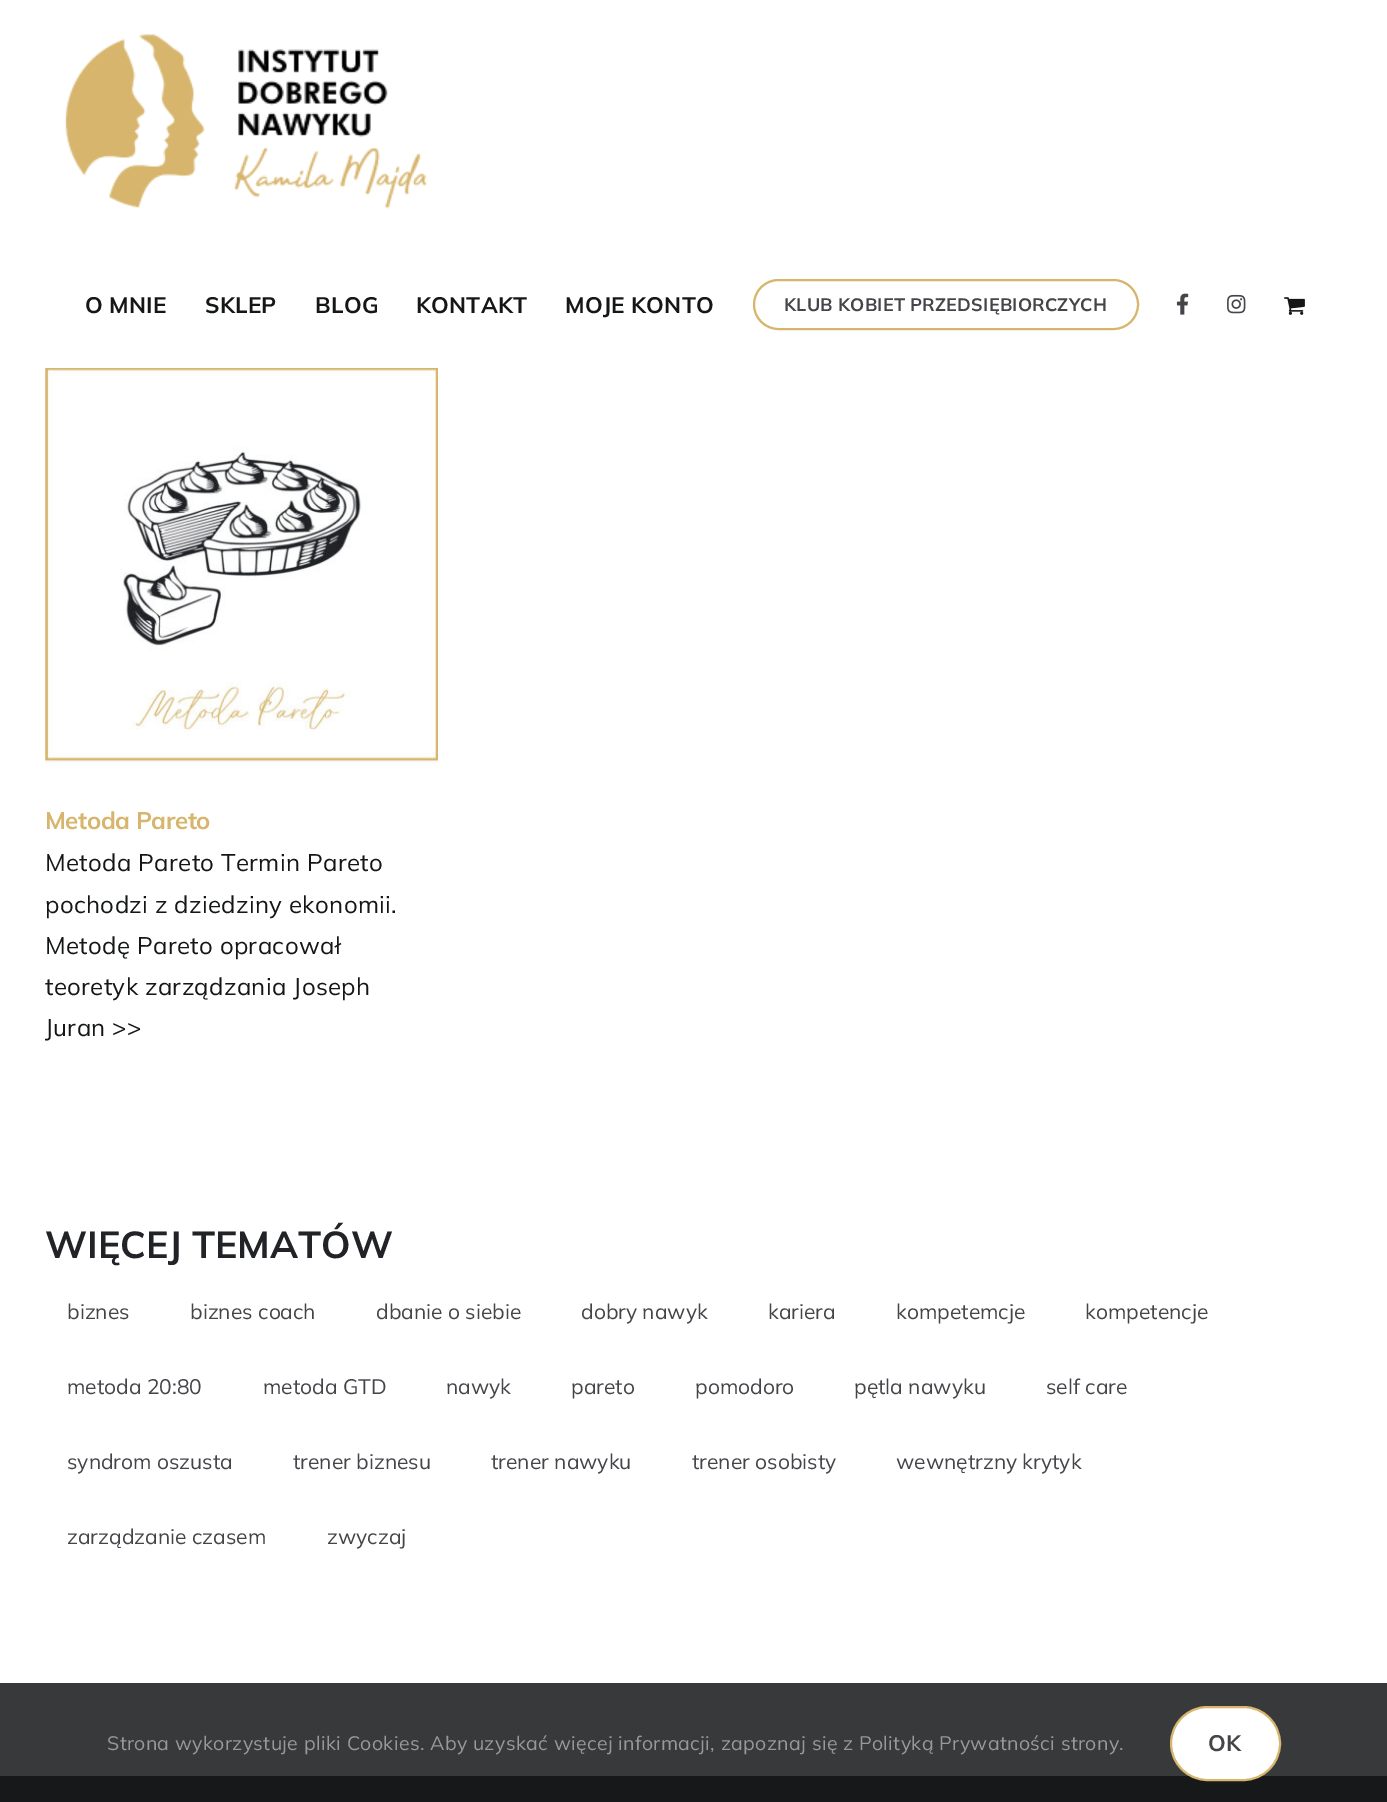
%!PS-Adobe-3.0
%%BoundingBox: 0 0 1387 1802
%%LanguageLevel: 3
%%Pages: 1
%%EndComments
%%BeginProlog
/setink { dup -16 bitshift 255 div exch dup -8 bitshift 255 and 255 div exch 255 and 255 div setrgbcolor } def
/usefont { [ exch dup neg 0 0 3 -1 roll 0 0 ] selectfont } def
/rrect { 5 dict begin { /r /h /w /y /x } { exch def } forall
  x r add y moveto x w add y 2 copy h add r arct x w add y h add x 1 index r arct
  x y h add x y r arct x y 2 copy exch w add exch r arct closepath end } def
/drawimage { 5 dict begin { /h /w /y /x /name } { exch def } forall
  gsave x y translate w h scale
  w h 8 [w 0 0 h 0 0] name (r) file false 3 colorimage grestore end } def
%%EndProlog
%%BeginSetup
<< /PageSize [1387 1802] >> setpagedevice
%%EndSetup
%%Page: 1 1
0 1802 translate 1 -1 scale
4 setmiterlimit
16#FFFFFF setink
0 0 1387 1802 rectfill
16#37393A setink
0 1683 1387 93 rectfill
(img1.raw) 64 34 363 175 drawimage
/Mulish-Bold 22.5 usefont
16#141617 setink
85 313 moveto 0.25 0 (O MNIE) ashow
205 313 moveto 0.25 0 (SKLEP) ashow
315 313 moveto 0.25 0 (BLOG) ashow
416 313 moveto 0.25 0 (KONTAKT) ashow
565 313 moveto 0.25 0 (MOJE KONTO) ashow
16#D7B56D setink
2 setlinewidth
754 280 384 49 24.5 rrect stroke
/Mulish-Bold 18 usefont
16#434549 setink
784 311 moveto 0.25 0 (KLUB KOBIET PRZEDSIĘBIORCZYCH) ashow
(img2.raw) 1176 293 13 22 drawimage
(img3.raw) 1227 294 19 20 drawimage
(img4.raw) 1284 297 21 18 drawimage
16#F9F9FB setink
45 761 393 2 rectfill
(img5.raw) 45 368 393 393 drawimage
/Mulish-Bold 24 usefont
16#D7B56D setink
45 829 moveto -0.4 0 (Metoda Pareto) ashow
/Mulish-Regular 24 usefont
16#141617 setink
45 871 moveto 0.36 0 (Metoda Pareto Termin Pareto) ashow
45 913 moveto 0.36 0 (pochodzi z dziedziny ekonomii.) ashow
45 954 moveto 0.36 0 (Metodę Pareto opracował) ashow
45 995 moveto 0.36 0 (teoretyk zarządzania Joseph) ashow
45 1036 moveto 0.36 0 (Juran >>) ashow
/Mulish-Bold 37.5 usefont
16#212326 setink
45 1258 moveto (WIĘCEJ TEMATÓW) show
/Mulish-Regular 21 usefont
16#434549 setink
[
    [(biznes) 67 1319]
    [(biznes coach) 190 1319]
    [(dbanie o siebie) 376 1319]
    [(dobry nawyk) 581 1319]
    [(kariera) 768 1319]
    [(kompetemcje) 896 1319]
    [(kompetencje) 1085 1319]
    [(metoda 20:80) 67 1394]
    [(metoda GTD) 263 1394]
    [(nawyk) 446 1394]
    [(pareto) 571 1394]
    [(pomodoro) 695 1394]
    [(pętla nawyku) 854 1394]
    [(self care) 1046 1394]
    [(syndrom oszusta) 67 1469]
    [(trener biznesu) 293 1469]
    [(trener nawyku) 491 1469]
    [(trener osobisty) 692 1469]
    [(wewnętrzny krytyk) 896 1469]
    [(zarządzanie czasem) 67 1544]
    [(zwyczaj) 327 1544]
] { aload pop moveto show } forall
16#161819 setink
0 1776 1387 26 rectfill
/Mulish-Regular 19.5 usefont
16#999999 setink
107 1750 moveto 0.36 0 (Strona wykorzystuje pliki Cookies. Aby uzyskać więcej informacji, zapoznaj się z Polityką Prywatności strony.) ashow
16#FFFFFF setink
1171 1707 109 73 36.5 rrect gsave fill grestore
16#D7B56D setink
stroke
/Mulish-Bold 22.5 usefont
16#434549 setink
1208 1751 moveto 0.25 0 (OK) ashow
showpage
%%EOF
